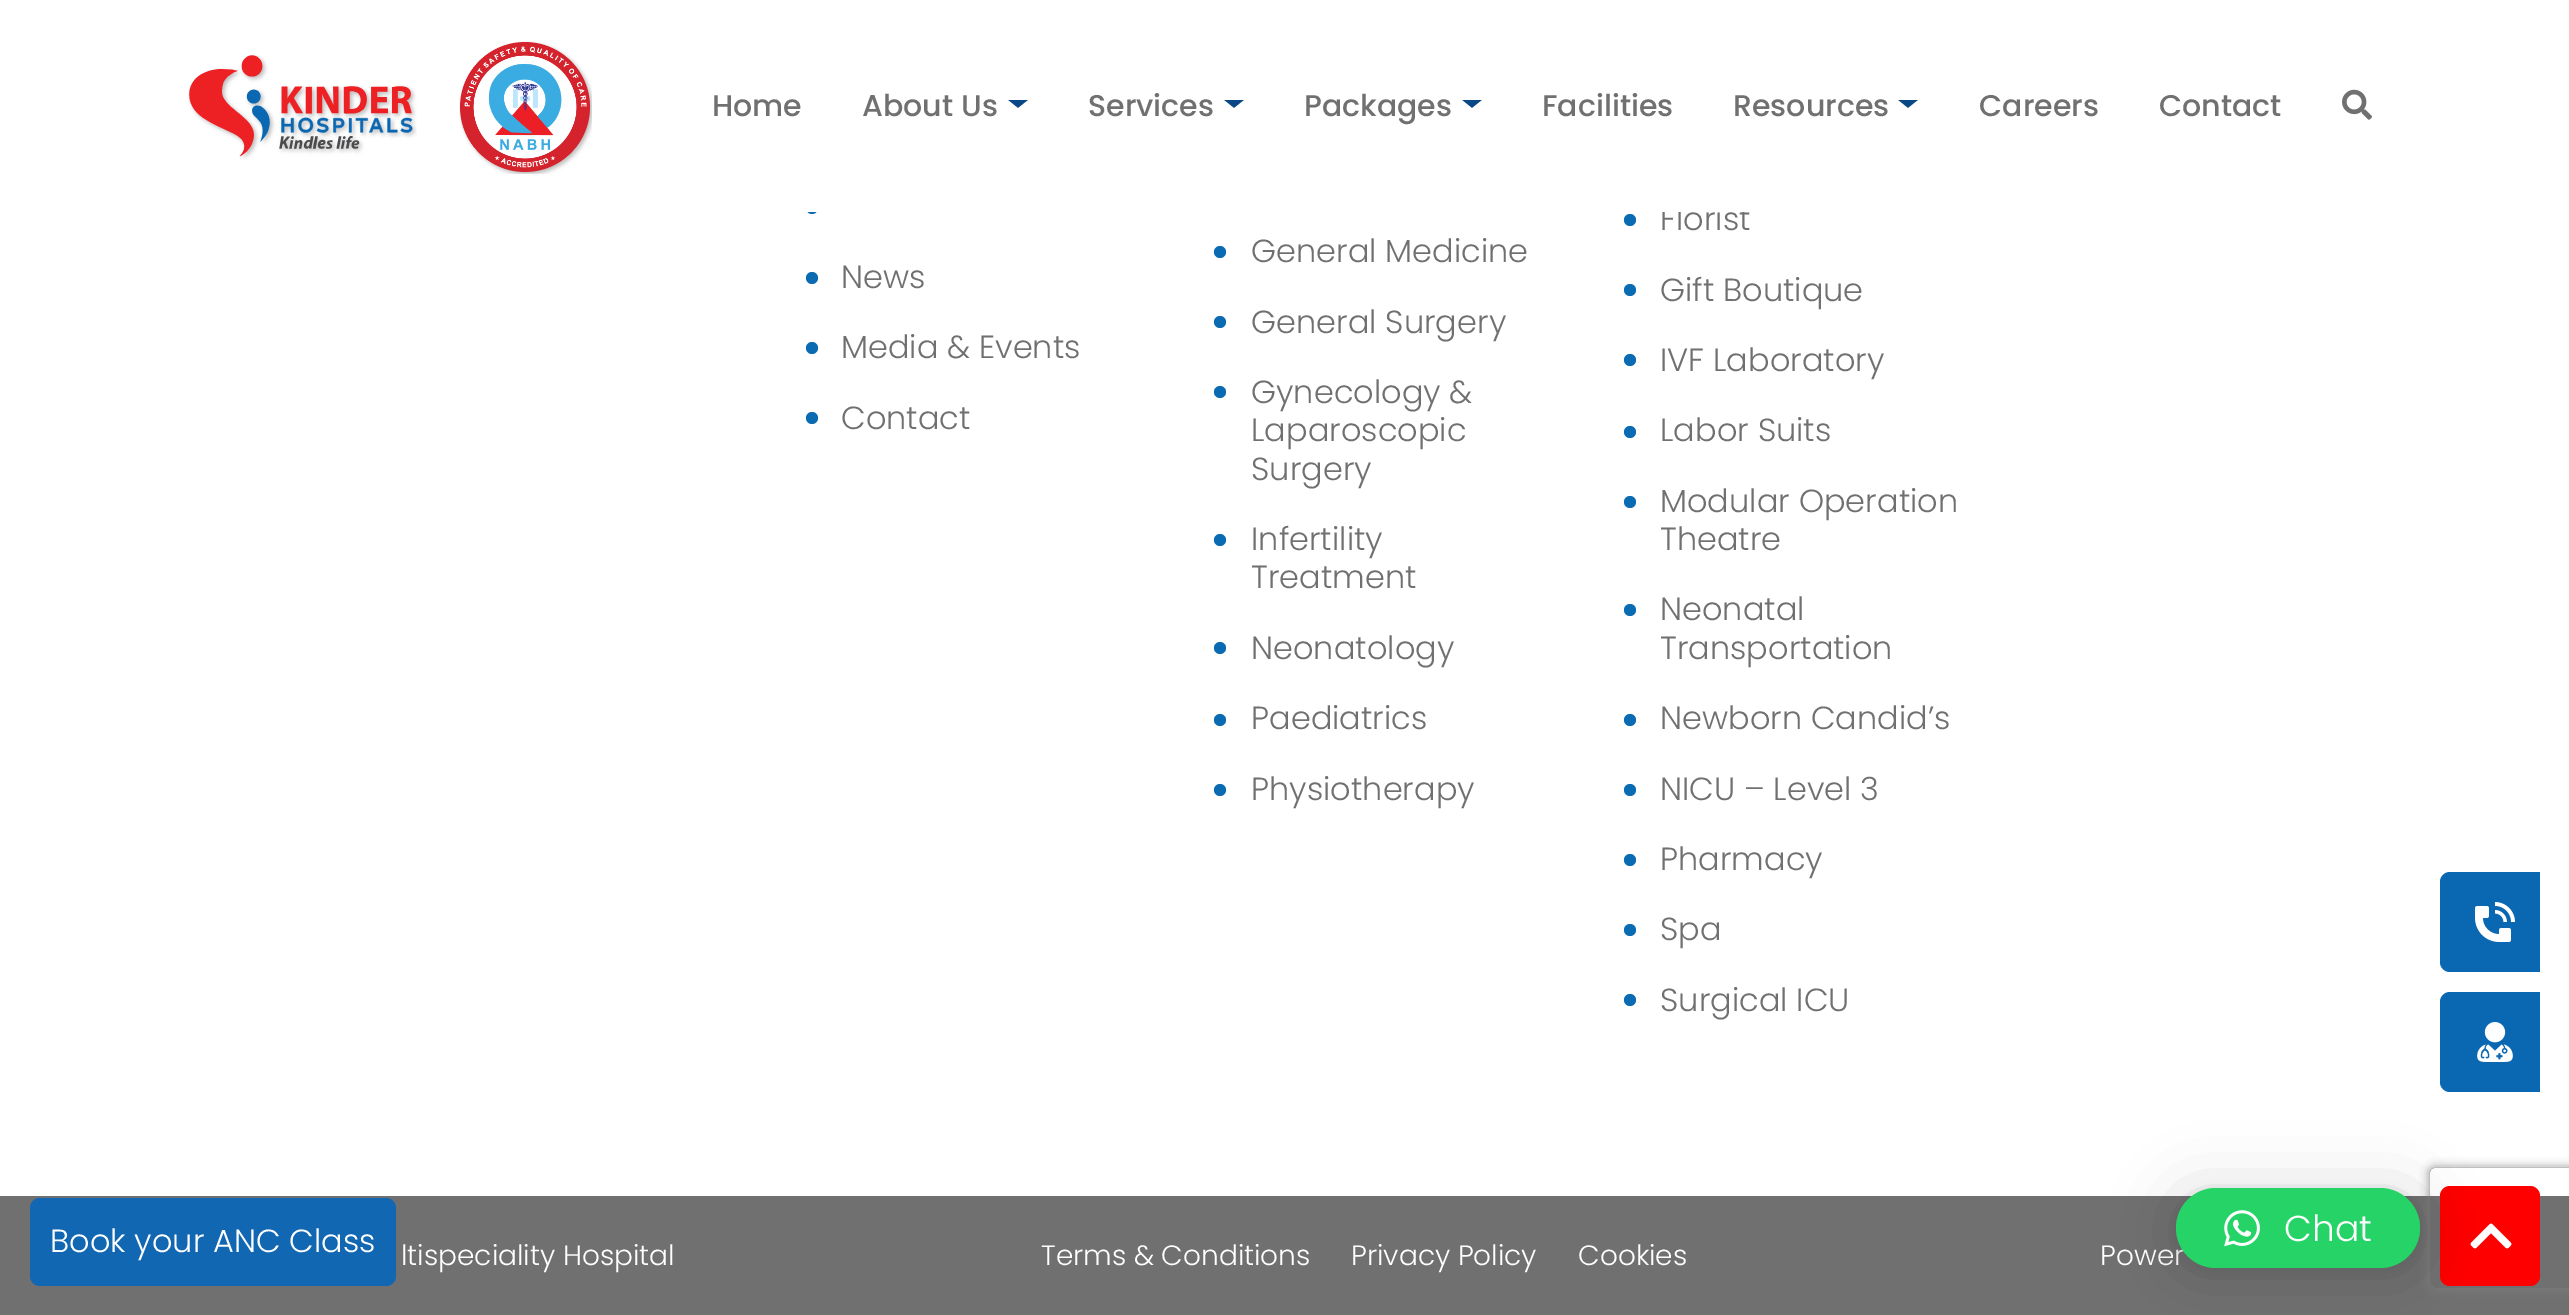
%!PS-Adobe-3.0
%%BoundingBox: 0 0 2569 1315
%%LanguageLevel: 3
%%Pages: 1
%%EndComments
%%BeginProlog
/setink { dup -16 bitshift 255 div exch dup -8 bitshift 255 and 255 div exch 255 and 255 div setrgbcolor } def
/usefont { [ exch dup neg 0 0 3 -1 roll 0 0 ] selectfont } def
/setalpha { dup .setfillconstantalpha .setstrokeconstantalpha } def
/disc { newpath 0 360 arc closepath } def
/rrect { 5 dict begin { /r /h /w /y /x } { exch def } forall
  x r add y moveto x w add y 2 copy h add r arct x w add y h add x 1 index r arct
  x y h add x y r arct x y 2 copy exch w add exch r arct closepath end } def
/softshadow { 12 dict begin { /a /b /q /h /w /y /x } { exch def } forall gsave /was 0 def
  9 -2 -9 { dup b mul 4 div /e exch def 1 sub .425 mul 2.718 exch exp 1 add a .99 .min exch div /now exch def
    1 1 now sub 1 was sub div sub setalpha /was now def
    w h .min e 2 mul add 0 gt { x e sub y e sub w e 2 mul add h e 2 mul add
      q e add b .6 mul add w h .min 2 div e add .min 0 .max rrect fill } if } for grestore end } def
/drawimage { 5 dict begin { /h /w /y /x /name } { exch def } forall
  gsave x y translate w h scale
  w h 8 [w 0 0 h 0 0] name (r) file false 3 colorimage grestore end } def
%%EndProlog
%%BeginSetup
<< /PageSize [2569 1315] /PageUsesTransparency true >> setpagedevice
%%EndSetup
%%Page: 1 1
0 .pushpdf14devicefilter
0 1315 translate 1 -1 scale
4 setmiterlimit
16#FFFFFF setink
0 0 2569 1315 rectfill
16#0A6AB2 setink
812 208 6 disc fill
/Poppins-Light 32 usefont
16#707070 setink
1660 230 moveto (Florist) show
16#FFFFFF setink
806 202 939 10 rectfill
(img1.raw) 188 55 229 105 drawimage
(img2.raw) 459 41 133 133 drawimage
/Poppins-Medium 30 usefont
16#707070 setink
712 116 moveto (Home) show
862 116 moveto (About Us) show
(img3.raw) 1008 100 20 8 drawimage
1088 116 moveto (Services) show
(img3.raw) 1224 100 20 8 drawimage
1304 116 moveto (Packages) show
(img3.raw) 1462 100 20 8 drawimage
1542 116 moveto (Facilities) show
1733 116 moveto (Resources) show
(img3.raw) 1898 100 20 8 drawimage
1979 116 moveto (Careers) show
2159 116 moveto (Contact) show
(img4.raw) 2342 89 30 31 drawimage
16#0A6AB2 setink
812 278 6 disc fill
/Poppins-Light 32 usefont
16#707070 setink
841 288 moveto (News) show
16#0A6AB2 setink
812 348 6 disc fill
16#707070 setink
841 358 moveto (Media & Events) show
16#0A6AB2 setink
812 418 6 disc fill
16#707070 setink
841 429 moveto (Contact) show
16#0A6AB2 setink
1220 252 6 disc fill
16#707070 setink
1251 262 moveto (General Medicine) show
16#0A6AB2 setink
1220 322 6 disc fill
16#707070 setink
1251 333 moveto (General Surgery) show
16#0A6AB2 setink
1220 392 6 disc fill
16#707070 setink
[
    [(Gynecology &) 1251 403]
    [(Laparoscopic) 1251 441]
    [(Surgery) 1251 480]
] { aload pop moveto show } forall
16#0A6AB2 setink
1220 540 6 disc fill
16#707070 setink
1251 550 moveto (Infertility) show
1251 588 moveto (Treatment) show
16#0A6AB2 setink
1220 648 6 disc fill
16#707070 setink
1251 659 moveto (Neonatology) show
16#0A6AB2 setink
1220 720 6 disc fill
16#707070 setink
1251 729 moveto (Paediatrics) show
16#0A6AB2 setink
1220 790 6 disc fill
16#707070 setink
1251 800 moveto (Physiotherapy) show
16#0A6AB2 setink
1630 220 6 disc fill
1630 290 6 disc fill
16#707070 setink
1660 301 moveto (Gift Boutique) show
16#0A6AB2 setink
1630 360 6 disc fill
16#707070 setink
1660 371 moveto (IVF Laboratory) show
16#0A6AB2 setink
1630 432 6 disc fill
16#707070 setink
1660 441 moveto (Labor Suits) show
16#0A6AB2 setink
1630 502 6 disc fill
16#707070 setink
1660 512 moveto (Modular Operation) show
1660 550 moveto (Theatre) show
16#0A6AB2 setink
1630 610 6 disc fill
16#707070 setink
1660 620 moveto (Neonatal) show
1660 659 moveto (Transportation) show
16#0A6AB2 setink
1630 720 6 disc fill
16#707070 setink
1660 729 moveto (Newborn Candid’s) show
16#0A6AB2 setink
1630 790 6 disc fill
16#707070 setink
1660 800 moveto (NICU – Level 3) show
16#0A6AB2 setink
1630 860 6 disc fill
16#707070 setink
1660 870 moveto (Pharmacy) show
16#0A6AB2 setink
1630 930 6 disc fill
16#707070 setink
1660 940 moveto (Spa) show
16#0A6AB2 setink
1630 1000 6 disc fill
16#707070 setink
1660 1011 moveto (Surgical ICU) show
16#0A68B2 setink
2450 872 moveto 2540 872 lineto 2540 972 lineto 2450 972 lineto 2444.5 972 2440 967.5 2440 962 curveto 2440 882 lineto 2440 876.5 2444.5 872 2450 872 curveto closepath fill
(img5.raw) 2475 902 40 40 drawimage
2450 992 moveto 2540 992 lineto 2540 1092 lineto 2450 1092 lineto 2444.5 1092 2440 1087.5 2440 1082 curveto 2440 1002 lineto 2440 996.5 2444.5 992 2450 992 curveto closepath fill
(img6.raw) 2477 1022 36 40 drawimage
16#707070 setink
0 1196 2569 119 rectfill
gsave
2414 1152 moveto 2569 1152 lineto 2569 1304 lineto 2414 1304 lineto closepath 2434 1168 moveto 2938 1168 lineto 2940 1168 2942 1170 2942 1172 curveto 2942 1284 lineto 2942 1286 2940 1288 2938 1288 curveto 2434 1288 lineto 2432 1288 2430 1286 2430 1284 curveto 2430 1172 lineto 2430 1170 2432 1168 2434 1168 curveto closepath eoclip newpath
16#808080 setink
2430 1168 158 120 4 5 1 softshadow
grestore
16#1267B2 setink
30 1198 366 88 10 rrect fill
16#FFFFFF setink
50 1252 moveto (Book your ANC Class) show
/Poppins-Light 28 usefont
[
    [(ltispeciality Hospital) 401 1265]
    [(Terms & Conditions) 1041 1265]
    [(Privacy Policy) 1351 1265]
    [(Cookies) 1578 1265]
    [(Power) 2100 1265]
] { aload pop moveto show } forall
16#FF0000 setink
2440 1186 100 100 10 rrect fill
(img8.raw) 2470 1223 42 26 drawimage
16#000000 setink
2176 1192 244 80 40 32 0.16 softshadow
2176 1190 244 80 40 6 0.06 softshadow
16#25D366 setink
2176 1188 244 80 40 rrect fill
(img7.raw) 2224 1210 36 37 drawimage
/Poppins-Light 36 usefont
16#FFFFFF setink
2284 1241 moveto (Chat) show
.poppdf14devicefilter showpage
%%EOF
